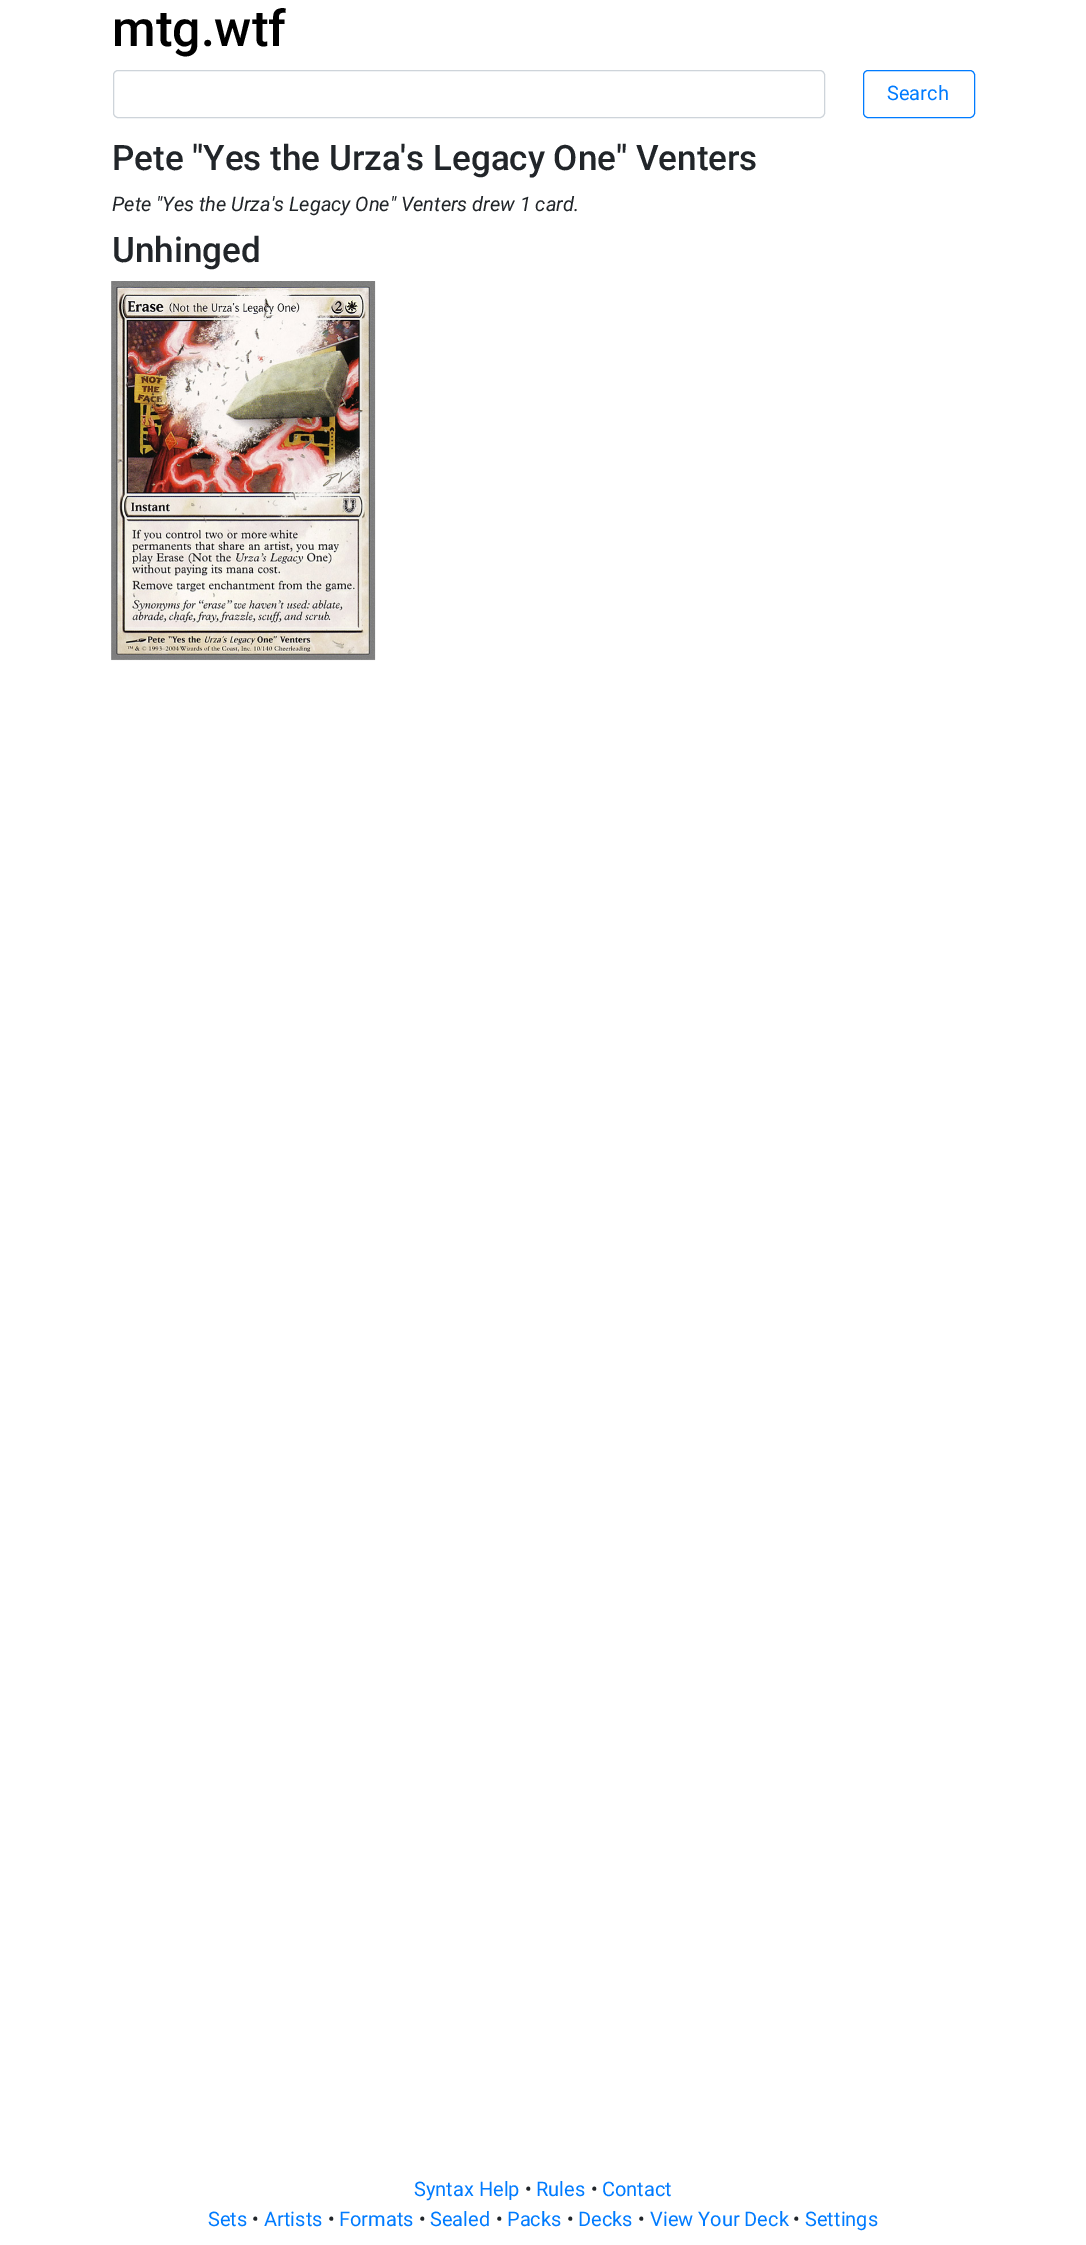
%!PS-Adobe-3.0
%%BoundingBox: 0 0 1086 2245
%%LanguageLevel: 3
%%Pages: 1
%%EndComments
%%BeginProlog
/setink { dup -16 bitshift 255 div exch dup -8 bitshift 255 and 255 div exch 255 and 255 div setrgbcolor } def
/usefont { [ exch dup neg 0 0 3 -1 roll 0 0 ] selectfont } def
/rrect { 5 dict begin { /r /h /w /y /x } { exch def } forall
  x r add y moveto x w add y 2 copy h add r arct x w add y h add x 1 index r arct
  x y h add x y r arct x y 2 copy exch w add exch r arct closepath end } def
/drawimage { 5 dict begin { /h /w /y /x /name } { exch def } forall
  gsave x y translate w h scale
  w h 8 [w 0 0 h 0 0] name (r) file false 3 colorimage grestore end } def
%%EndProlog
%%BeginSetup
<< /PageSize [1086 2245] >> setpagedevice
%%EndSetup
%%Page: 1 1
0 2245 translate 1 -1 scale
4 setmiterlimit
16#FFFFFF setink
0 0 1086 2245 rectfill
/Roboto-Medium 50 usefont
16#000000 setink
112 46 moveto (mtg.wtf) show
16#CED4DA setink
113.5 70.5 711 47 4.5 rrect stroke
16#007BFF setink
863.5 70.5 111 47 4.5 rrect stroke
/Roboto-Regular 20 usefont
887 100 moveto (Search) show
/Roboto-Medium 35 usefont
16#212529 setink
112 170 moveto (Pete "Yes the Urza's Legacy One" Venters) show
/Roboto-Italic 20 usefont
112 211 moveto (Pete "Yes the Urza's Legacy One" Venters drew 1 card.) show
/Roboto-Medium 35 usefont
112 262 moveto (Unhinged) show
(img1.raw) 111 281 265 380 drawimage
/Roboto-Regular 20 usefont
16#007BFF setink
414 2196 moveto (Syntax Help) show
16#212529 setink
525 2196 moveto (•) show
16#007BFF setink
536 2196 moveto (Rules) show
16#212529 setink
591 2196 moveto (•) show
16#007BFF setink
602 2196 moveto (Contact) show
208 2226 moveto (Sets) show
16#212529 setink
252 2226 moveto (•) show
16#007BFF setink
264 2226 moveto (Artists) show
16#212529 setink
328 2226 moveto (•) show
16#007BFF setink
339 2226 moveto (Formats) show
16#212529 setink
419 2226 moveto (•) show
16#007BFF setink
430 2226 moveto (Sealed) show
16#212529 setink
496 2226 moveto (•) show
16#007BFF setink
507 2226 moveto (Packs) show
16#212529 setink
567 2226 moveto (•) show
16#007BFF setink
578 2226 moveto (Decks) show
16#212529 setink
638 2226 moveto (•) show
16#007BFF setink
650 2226 moveto (View Your Deck) show
16#212529 setink
793 2226 moveto (•) show
16#007BFF setink
805 2226 moveto (Settings) show
showpage
%%EOF
